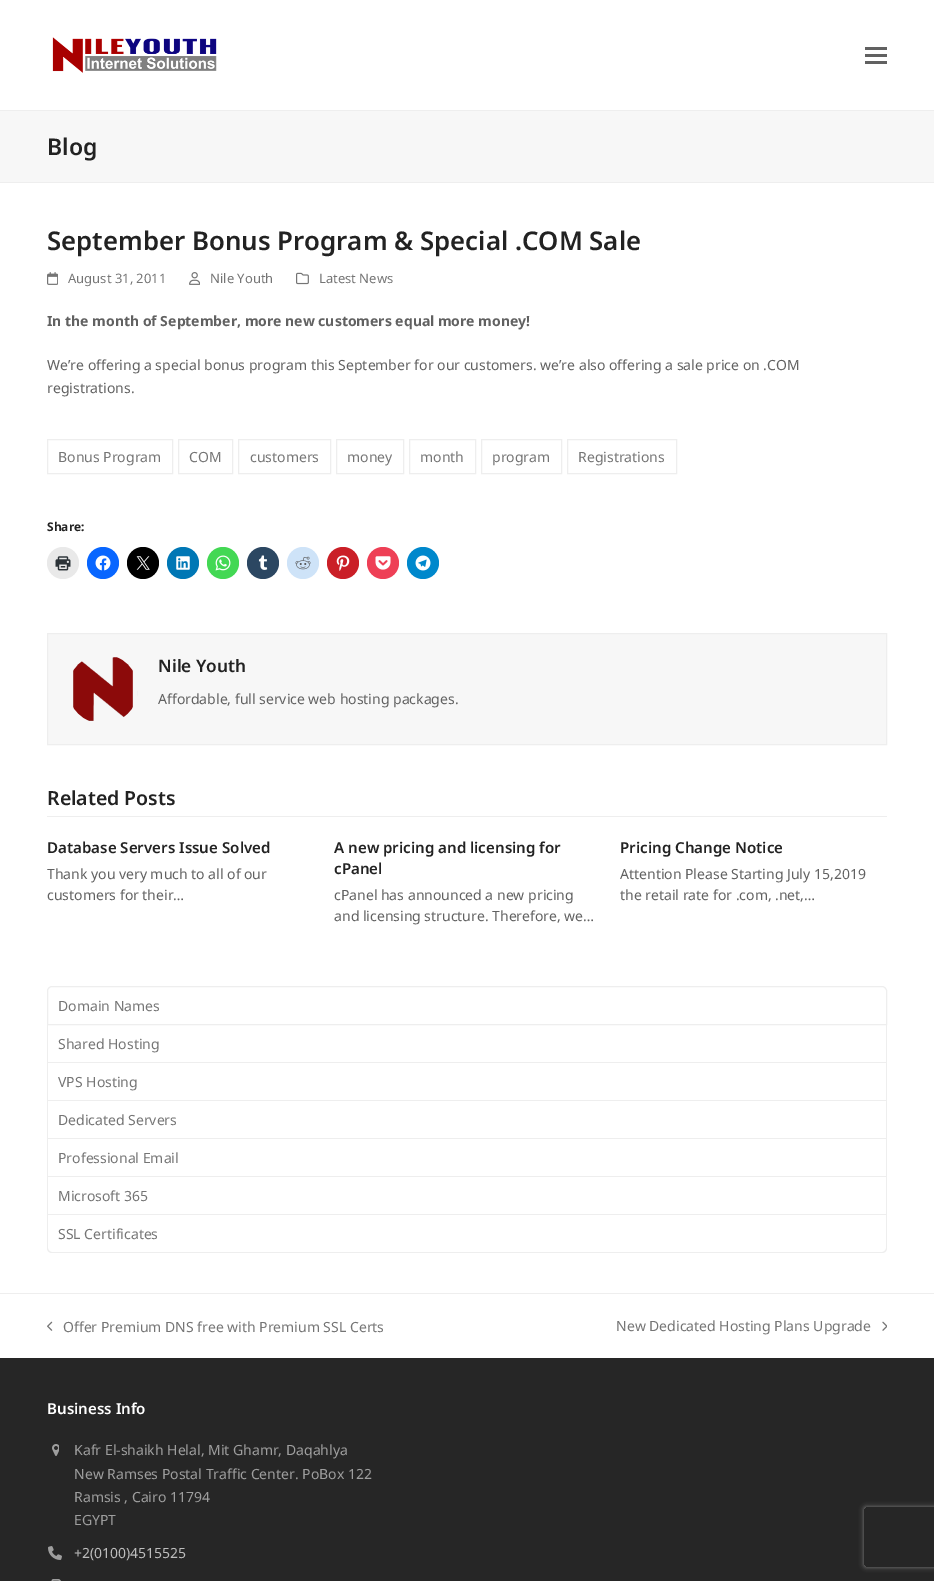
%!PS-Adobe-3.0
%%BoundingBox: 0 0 934 1581
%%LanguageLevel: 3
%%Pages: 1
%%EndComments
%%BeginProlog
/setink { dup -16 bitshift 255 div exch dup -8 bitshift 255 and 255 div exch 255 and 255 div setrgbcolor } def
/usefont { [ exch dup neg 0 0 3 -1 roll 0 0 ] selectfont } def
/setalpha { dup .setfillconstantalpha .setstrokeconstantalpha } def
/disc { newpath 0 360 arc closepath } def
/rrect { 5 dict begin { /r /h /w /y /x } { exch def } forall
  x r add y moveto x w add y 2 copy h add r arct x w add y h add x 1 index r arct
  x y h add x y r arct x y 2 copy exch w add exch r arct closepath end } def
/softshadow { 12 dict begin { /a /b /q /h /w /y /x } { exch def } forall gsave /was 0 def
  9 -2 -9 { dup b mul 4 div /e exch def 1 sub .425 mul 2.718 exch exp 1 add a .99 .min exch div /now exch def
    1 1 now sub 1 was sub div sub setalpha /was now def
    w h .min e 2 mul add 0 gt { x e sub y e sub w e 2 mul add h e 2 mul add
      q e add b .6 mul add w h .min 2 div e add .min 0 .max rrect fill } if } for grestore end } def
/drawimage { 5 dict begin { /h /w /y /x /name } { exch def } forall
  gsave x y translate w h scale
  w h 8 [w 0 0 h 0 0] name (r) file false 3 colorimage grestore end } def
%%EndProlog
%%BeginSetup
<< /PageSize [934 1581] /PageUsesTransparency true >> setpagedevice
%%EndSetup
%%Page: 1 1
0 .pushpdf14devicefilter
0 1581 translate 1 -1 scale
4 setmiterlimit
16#FFFFFF setink
0 0 934 1581 rectfill
(img1.raw) 52 37 165 36 drawimage
[
    [865 54 22 3 16#616161]
    [865 47 22 3 16#616161]
    [865 61 22 3 16#616161]
    [0 111 934 71 16#F7F7F7]
    [0 110 934 1 16#EEEEEE]
    [0 182 934 1 16#EEEEEE]
] { aload pop setink rectfill } forall
/NotoSans-SemiBold 23 usefont
16#222222 setink
47 155 moveto (Blog) show
/NotoSans-SemiBold 25.8 usefont
47 250 moveto (September Bonus Program & Special .COM Sale) show
(img2.raw) 47 272 11 13 drawimage
/NotoSans-Regular 13 usefont
16#757575 setink
68 283 moveto (August 31, 2011) show
(img3.raw) 189 272 11 13 drawimage
210 283 moveto (Nile Youth) show
(img4.raw) 296 272 13 13 drawimage
319 283 moveto (Latest News) show
/NotoSans-Bold 14 usefont
16#616161 setink
47 326 moveto (In the month of September, more new customers equal more money!) show
/NotoSans-Regular 14 usefont
47 370 moveto (We’re offering a special bonus program this September for our customers. we’re also offering a sale price on .COM) show
47 393 moveto (registrations.) show
16#EEEEEE setink
47.5 439.5 125 34 rectstroke
16#757575 setink
58 462 moveto (Bonus Program) show
16#EEEEEE setink
178.5 439.5 54 34 rectstroke
16#757575 setink
189 462 moveto (COM) show
16#EEEEEE setink
238.5 439.5 92 34 rectstroke
16#757575 setink
250 462 moveto (customers) show
16#EEEEEE setink
336.5 439.5 67 34 rectstroke
16#757575 setink
347 462 moveto (money) show
16#EEEEEE setink
409.5 439.5 66 34 rectstroke
16#757575 setink
420 462 moveto (month) show
16#EEEEEE setink
481.5 439.5 80 34 rectstroke
16#757575 setink
492 462 moveto (program) show
16#EEEEEE setink
567.5 439.5 109 34 rectstroke
16#757575 setink
578 462 moveto (Registrations) show
/NotoSans-Bold 12 usefont
16#222222 setink
47 531 moveto (Share:) show
16#E9E9E9 setink
63 563 16 disc fill
(img5.raw) 55 556 16 15 drawimage
16#0866FF setink
103 563 16 disc fill
(img6.raw) 95 555 16 16 drawimage
16#000000 setink
143 563 16 disc fill
(img7.raw) 136 556 14 14 drawimage
16#0077B5 setink
183 563 16 disc fill
(img8.raw) 176 556 14 14 drawimage
16#43D854 setink
223 563 16 disc fill
(img9.raw) 215 555 16 16 drawimage
16#2C4762 setink
263 563 16 disc fill
(img10.raw) 258 555 10 15 drawimage
16#CEE3F8 setink
303 563 16 disc fill
(img11.raw) 295 556 16 14 drawimage
16#CA1F27 setink
343 563 16 disc fill
(img12.raw) 336 555 14 16 drawimage
16#EE4056 setink
383 563 16 disc fill
(img13.raw) 375 556 16 14 drawimage
16#0088CC setink
423 563 16 disc fill
(img14.raw) 415 555 16 16 drawimage
16#F7F7F7 setink
47.5 633.5 moveto 886.5 633.5 lineto 886.5 744.5 lineto 47.5 744.5 lineto closepath gsave fill grestore
16#EEEEEE setink
stroke
(img15.raw) 73 657 65 64 drawimage
/NotoSans-SemiBold 17.25 usefont
16#222222 setink
158 672 moveto (Nile Youth) show
/NotoSans-Regular 14 usefont
16#616161 setink
158 704 moveto (Affordable, full service web hosting packages.) show
16#EEEEEE setink
47 816 840 1 rectfill
/NotoSans-SemiBold 19.5 usefont
16#222222 setink
47 805 moveto (Related Posts) show
/NotoSans-SemiBold 15.1 usefont
47 853 moveto (Database Servers Issue Solved) show
/NotoSans-Regular 14 usefont
16#616161 setink
47 879 moveto (Thank you very much to all of our) show
47 900 moveto (customers for their…) show
/NotoSans-SemiBold 15.1 usefont
16#222222 setink
334 853 moveto (A new pricing and licensing for) show
334 874 moveto (cPanel) show
/NotoSans-Regular 14 usefont
16#616161 setink
334 900 moveto (cPanel has announced a new pricing) show
334 921 moveto (and licensing structure. Therefore, we…) show
/NotoSans-SemiBold 15.1 usefont
16#222222 setink
620 853 moveto (Pricing Change Notice) show
/NotoSans-Regular 14 usefont
16#616161 setink
620 879 moveto (Attention Please Starting July 15,2019) show
620 900 moveto (the retail rate for .com, .net,…) show
16#EEEEEE setink
52 986.5 moveto 882 986.5 lineto 884.5 986.5 886.5 988.5 886.5 991 curveto 886.5 1024.5 lineto 47.5 1024.5 lineto 47.5 991 lineto 47.5 988.5 49.5 986.5 52 986.5 curveto closepath stroke
16#757575 setink
58 1011 moveto (Domain Names) show
[
    [886 1025 1 190 16#EEEEEE]
    [47 1062 840 1 16#EEEEEE]
    [47 1025 1 38 16#EEEEEE]
] { aload pop setink rectfill } forall
16#757575 setink
58 1049 moveto (Shared Hosting) show
16#EEEEEE setink
47 1100 840 1 rectfill
47 1063 1 38 rectfill
16#757575 setink
58 1087 moveto (VPS Hosting) show
16#EEEEEE setink
47 1138 840 1 rectfill
47 1101 1 38 rectfill
16#757575 setink
58 1125 moveto (Dedicated Servers) show
16#EEEEEE setink
47 1176 840 1 rectfill
47 1139 1 38 rectfill
16#757575 setink
58 1163 moveto (Professional Email) show
16#EEEEEE setink
47 1214 840 1 rectfill
47 1177 1 38 rectfill
16#757575 setink
58 1201 moveto (Microsoft 365) show
16#EEEEEE setink
47 1215 moveto 887 1215 lineto 887 1248 lineto 887 1251 885 1253 882 1253 curveto 52 1253 lineto 49 1253 47 1251 47 1248 curveto closepath 48 1215 moveto 886 1215 lineto 886 1248 lineto 886 1250 884 1252 882 1252 curveto 52 1252 lineto 50 1252 48 1250 48 1248 curveto closepath eofill
16#757575 setink
58 1239 moveto (SSL Certificates) show
16#EEEEEE setink
0 1293 934 1 rectfill
(img16.raw) 47 1321 6 10 drawimage
16#757575 setink
63 1332 moveto (Offer Premium DNS free with Premium SSL Certs) show
616 1331 moveto (New Dedicated Hosting Plans Upgrade) show
(img17.raw) 882 1321 5 10 drawimage
16#262626 setink
0 1358 934 223 rectfill
/NotoSans-SemiBold 15.1 usefont
16#FFFFFF setink
47 1414 moveto (Business Info) show
(img18.raw) 52 1444 7 12 drawimage
/NotoSans-Regular 14 usefont
16#9E9E9E setink
[
    [(Kafr El-shaikh Helal, Mit Ghamr, Daqahlya) 74 1455]
    [(New Ramses Postal Traffic Center. PoBox 122) 74 1479]
    [(Ramsis , Cairo 11794) 74 1502]
    [(EGYPT) 74 1525]
] { aload pop moveto show } forall
(img19.raw) 48 1546 14 14 drawimage
16#BDBDBD setink
74 1558 moveto (+2\(0100\)4515525) show
(img20.raw) 51 1579 10 2 drawimage
gsave
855 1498 moveto 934 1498 lineto 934 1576 lineto 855 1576 lineto closepath 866 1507 moveto 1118 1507 lineto 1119 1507 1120 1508 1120 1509 curveto 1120 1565 lineto 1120 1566 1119 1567 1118 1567 curveto 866 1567 lineto 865 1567 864 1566 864 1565 curveto 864 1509 lineto 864 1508 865 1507 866 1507 curveto closepath eoclip newpath
16#808080 setink
864 1507 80 60 2 2.5 1 softshadow
grestore
.poppdf14devicefilter showpage
%%EOF
